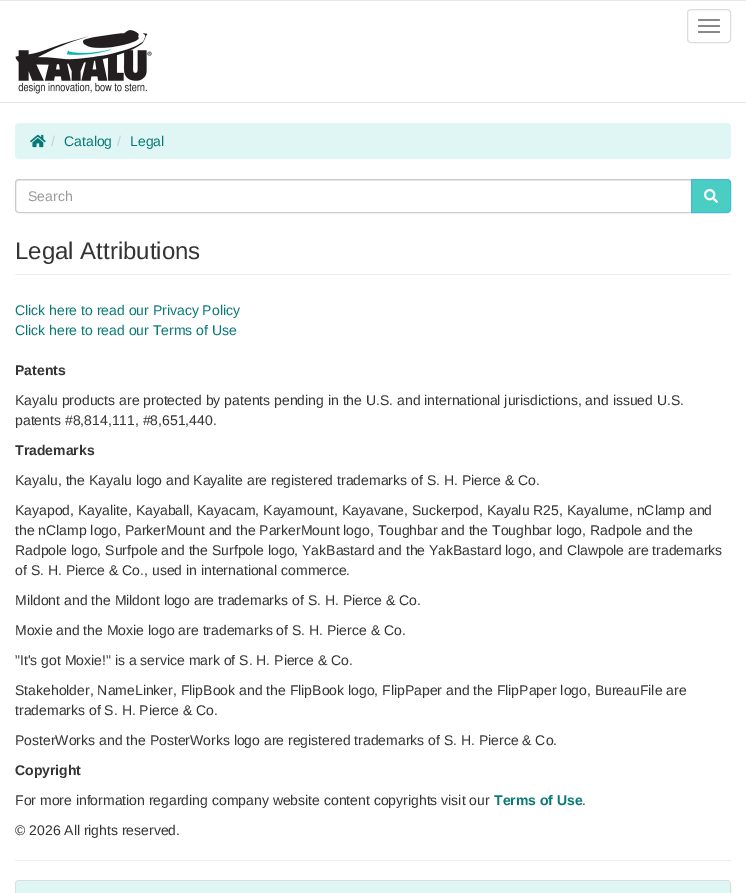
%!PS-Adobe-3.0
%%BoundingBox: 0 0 746 893
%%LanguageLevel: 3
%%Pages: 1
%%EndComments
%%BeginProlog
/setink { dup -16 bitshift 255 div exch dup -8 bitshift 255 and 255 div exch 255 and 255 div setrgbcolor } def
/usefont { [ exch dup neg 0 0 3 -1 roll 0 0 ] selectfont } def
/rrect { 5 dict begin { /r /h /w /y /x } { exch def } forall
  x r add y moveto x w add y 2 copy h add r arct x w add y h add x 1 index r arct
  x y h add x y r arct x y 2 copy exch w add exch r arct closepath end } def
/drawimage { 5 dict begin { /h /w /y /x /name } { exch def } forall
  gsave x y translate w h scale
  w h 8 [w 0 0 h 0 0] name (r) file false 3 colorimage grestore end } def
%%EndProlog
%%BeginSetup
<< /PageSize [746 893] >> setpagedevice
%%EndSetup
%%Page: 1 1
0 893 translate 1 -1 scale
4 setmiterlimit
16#FFFFFF setink
0 0 746 893 rectfill
16#E7E7E7 setink
0 0 746 1 rectfill
0 102 746 1 rectfill
16#DDDDDD setink
687.5 9.5 43 33 3.5 rrect stroke
16#898989 setink
698 19 22 2 1 rrect fill
698 25 22 2 1 rrect fill
698 31 22 2 1 rrect fill
(img1.raw) 15 30 137 64 drawimage
16#DFF6F4 setink
15 123 716 36 4 rrect fill
(img2.raw) 30 134 16 14 drawimage
/LiberationSans-Regular 14 usefont
16#CCCCCC setink
51 146 moveto (/) show
16#097976 setink
64 146 moveto (Catalog) show
16#CCCCCC setink
117 146 moveto (/) show
16#097976 setink
130 146 moveto (Legal) show
16#ECECEC setink
19 181 moveto 691 181 lineto 691 180 lineto 19 180 lineto 17 180 16 181 16 183 curveto 16 184 lineto 16 182 17 181 19 181 curveto closepath fill
16#CCCCCC setink
19 179.5 moveto 691.5 179.5 lineto 691.5 212.5 lineto 19 212.5 lineto 17 212.5 15.5 211 15.5 209 curveto 15.5 183 lineto 15.5 181 17 179.5 19 179.5 curveto closepath stroke
16#9A9A9A setink
28 201 moveto (Search) show
16#4ACEC3 setink
691.5 179.5 moveto 727 179.5 lineto 729 179.5 730.5 181 730.5 183 curveto 730.5 209 lineto 730.5 211 729 212.5 727 212.5 curveto 691.5 212.5 lineto closepath gsave fill grestore
16#47B8DA setink
stroke
(img3.raw) 704 189 14 14 drawimage
16#EEEEEE setink
15 274 716 1 rectfill
/LiberationSans-Regular 24 usefont
16#343434 setink
15 259 moveto (Legal Attributions) show
/LiberationSans-Regular 14 usefont
16#097976 setink
15 315 moveto (Click here to read our Privacy Policy) show
15 335 moveto (Click here to read our Terms of Use) show
/LiberationSans-Bold 14 usefont
16#343434 setink
15 375 moveto (Patents) show
/LiberationSans-Regular 14 usefont
15 405 moveto (Kayalu products are protected by patents pending in the U.S. and international jurisdictions, and issued U.S.) show
15 425 moveto (patents #8,814,111, #8,651,440.) show
/LiberationSans-Bold 14 usefont
15 455 moveto (Trademarks) show
/LiberationSans-Regular 14 usefont
[
    [(Kayalu, the Kayalu logo and Kayalite are registered trademarks of S. H. Pierce & Co.) 15 485]
    [(Kayapod, Kayalite, Kayaball, Kayacam, Kayamount, Kayavane, Suckerpod, Kayalu R25, Kayalume, nClamp and) 15 515]
    [(the nClamp logo, ParkerMount and the ParkerMount logo, Toughbar and the Toughbar logo, Radpole and the) 15 535]
    [(Radpole logo, Surfpole and the Surfpole logo, YakBastard and the YakBastard logo, and Clawpole are trademarks) 15 555]
    [(of S. H. Pierce & Co., used in international commerce.) 15 575]
    [(Mildont and the Mildont logo are trademarks of S. H. Pierce & Co.) 15 605]
    [(Moxie and the Moxie logo are trademarks of S. H. Pierce & Co.) 15 635]
    [("It's got Moxie!" is a service mark of S. H. Pierce & Co.) 15 665]
    [(Stakeholder, NameLinker, FlipBook and the FlipBook logo, FlipPaper and the FlipPaper logo, BureauFile are) 15 695]
    [(trademarks of S. H. Pierce & Co.) 15 715]
    [(PosterWorks and the PosterWorks logo are registered trademarks of S. H. Pierce & Co.) 15 745]
] { aload pop moveto show } forall
/LiberationSans-Bold 14 usefont
15 775 moveto (Copyright) show
/LiberationSans-Regular 14 usefont
15 805 moveto (For more information regarding company website content copyrights visit our) show
/LiberationSans-Bold 14 usefont
16#097976 setink
494 805 moveto (Terms of Use) show
/LiberationSans-Regular 14 usefont
16#343434 setink
582 805 moveto (.) show
15 835 moveto (© 2026 All rights reserved.) show
16#EEEEEE setink
15 860 716 1 rectfill
16#DDDDDD setink
15.5 880.5 715 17 3.5 rrect stroke
16#DFF6F4 setink
19 881 moveto 727 881 lineto 728.5 881 730 882.5 730 884 curveto 730 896 lineto 16 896 lineto 16 884 lineto 16 882.5 17.5 881 19 881 curveto closepath fill
showpage
%%EOF
